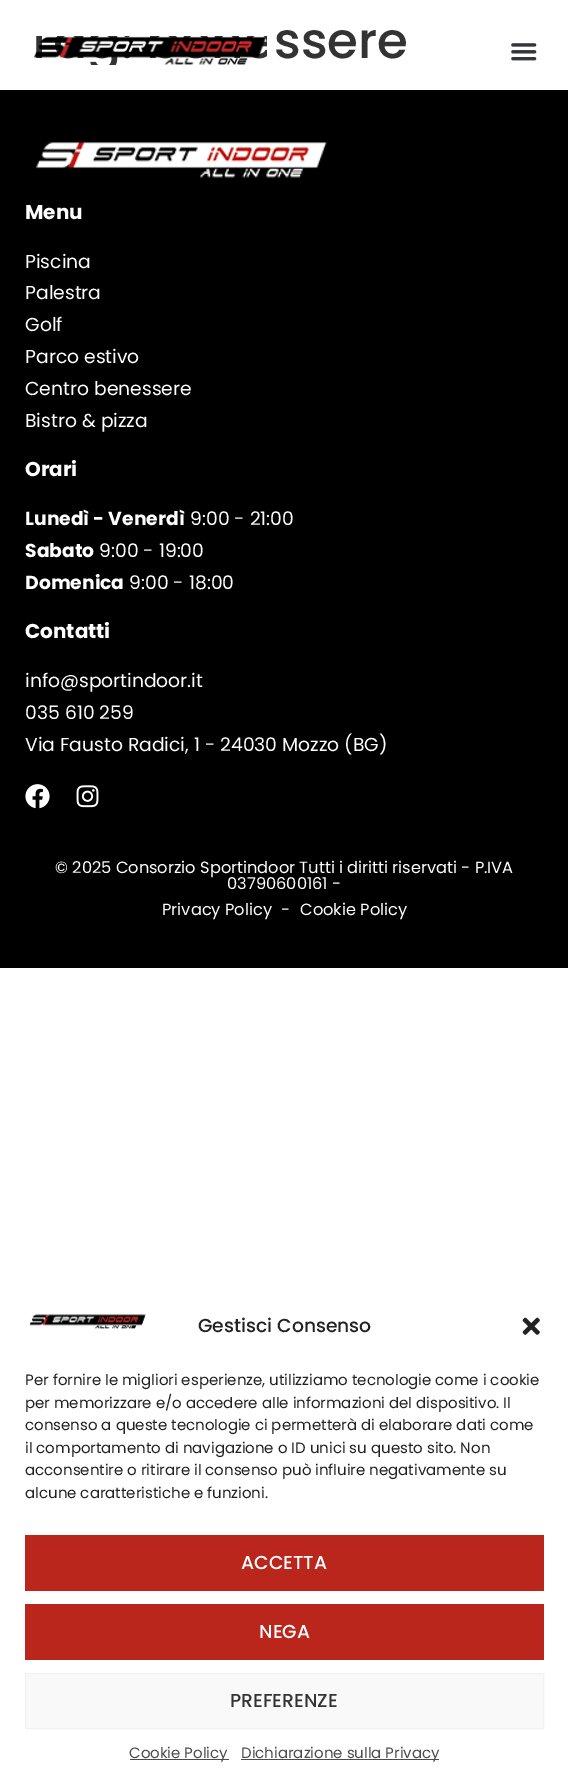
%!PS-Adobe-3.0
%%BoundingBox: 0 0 568 1782
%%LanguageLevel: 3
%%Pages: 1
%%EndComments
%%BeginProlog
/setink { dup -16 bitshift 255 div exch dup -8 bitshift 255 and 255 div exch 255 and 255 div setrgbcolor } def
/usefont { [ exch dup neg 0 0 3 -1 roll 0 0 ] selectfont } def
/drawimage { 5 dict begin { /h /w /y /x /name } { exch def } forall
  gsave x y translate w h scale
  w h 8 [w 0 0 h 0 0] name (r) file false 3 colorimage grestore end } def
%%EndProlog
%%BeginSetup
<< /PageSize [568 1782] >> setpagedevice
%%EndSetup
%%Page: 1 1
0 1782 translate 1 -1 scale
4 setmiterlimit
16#FFFFFF setink
0 0 568 1782 rectfill
/Poppins-Medium 50 usefont
16#333333 setink
274 58 moveto (ssere) show
(img1.raw) 33 36 234 29 drawimage
(img2.raw) 511 43 26 18 drawimage
16#000000 setink
0 90 568 878 rectfill
(img3.raw) 36 142 291 36 drawimage
/Poppins-Bold 20 usefont
16#FFFFFF setink
25 219 moveto (Menu) show
/Poppins-Regular 18.75 usefont
[
    [(Piscina) 25 268]
    [(Palestra) 25 299]
    [(Golf) 25 331]
    [(Parco estivo) 25 363]
    [(Centro benessere) 25 395]
    [(Bistro & pizza) 25 427]
] { aload pop moveto show } forall
/Poppins-Bold 20 usefont
25 476 moveto (Orari) show
/Poppins-Bold 18.75 usefont
25 525 moveto (Lunedì - Venerdì) show
/Poppins-Regular 18.75 usefont
190 525 moveto (9:00 - 21:00) show
/Poppins-Bold 18.75 usefont
25 557 moveto (Sabato) show
/Poppins-Regular 18.75 usefont
99 557 moveto (9:00 - 19:00) show
/Poppins-Bold 18.75 usefont
25 589 moveto (Domenica) show
/Poppins-Regular 18.75 usefont
129 589 moveto (9:00 - 18:00) show
/Poppins-Bold 20 usefont
25 638 moveto (Contatti) show
/Poppins-Regular 18.75 usefont
[
    [(info@sportindoor.it) 25 687]
    [(035 610 259) 25 719]
    [(Via Fausto Radici, 1 - 24030 Mozzo \(BG\)) 25 751]
] { aload pop moveto show } forall
(img4.raw) 25 784 25 25 drawimage
(img5.raw) 76 785 23 23 drawimage
/Poppins-Regular 16.25 usefont
[
    [(© 2025 Consorzio Sportindoor Tutti i diritti riservati - P.IVA) 55 873]
    [(03790600161 -) 227 889]
    [(Privacy Policy) 162 915]
    [(-) 281 915]
    [(Cookie Policy) 300 915]
] { aload pop moveto show } forall
(img6.raw) 29 1314 117 15 drawimage
/Poppins-Medium 18.75 usefont
16#222222 setink
198 1332 moveto (Gestisci Consenso) show
(img7.raw) 522 1317 18 18 drawimage
/Poppins-Regular 15 usefont
[
    [(Per fornire le migliori esperienze, utilizziamo tecnologie come i cookie) 25 1385]
    [(per memorizzare e/o accedere alle informazioni del dispositivo. Il) 25 1408]
    [(consenso a queste tecnologie ci permetterà di elaborare dati come) 25 1430]
    [(il comportamento di navigazione o ID unici su questo sito. Non) 25 1453]
    [(acconsentire o ritirare il consenso può influire negativamente su) 25 1475]
    [(alcune caratteristiche e funzioni.) 25 1498]
] { aload pop moveto show } forall
16#BA261C setink
25 1535 519 56 rectfill
/Poppins-Medium 18.75 usefont
16#FFFFFF setink
241 1569 moveto (ACCETTA) show
16#BA261C setink
25 1604 519 56 rectfill
16#FFFFFF setink
259 1638 moveto (NEGA) show
16#F9F9F9 setink
25.5 1673.5 moveto 543.5 1673.5 lineto 543.5 1728.5 lineto 25.5 1728.5 lineto closepath gsave fill grestore
16#F2F2F2 setink
stroke
16#333333 setink
230 1707 moveto (PREFERENZE) show
16#4C4C4C setink
130 1759 99 1 rectfill
/Poppins-Regular 15 usefont
129 1758 moveto (Cookie Policy) show
241 1759 198 1 rectfill
241 1758 moveto (Dichiarazione sulla Privacy) show
showpage
%%EOF
